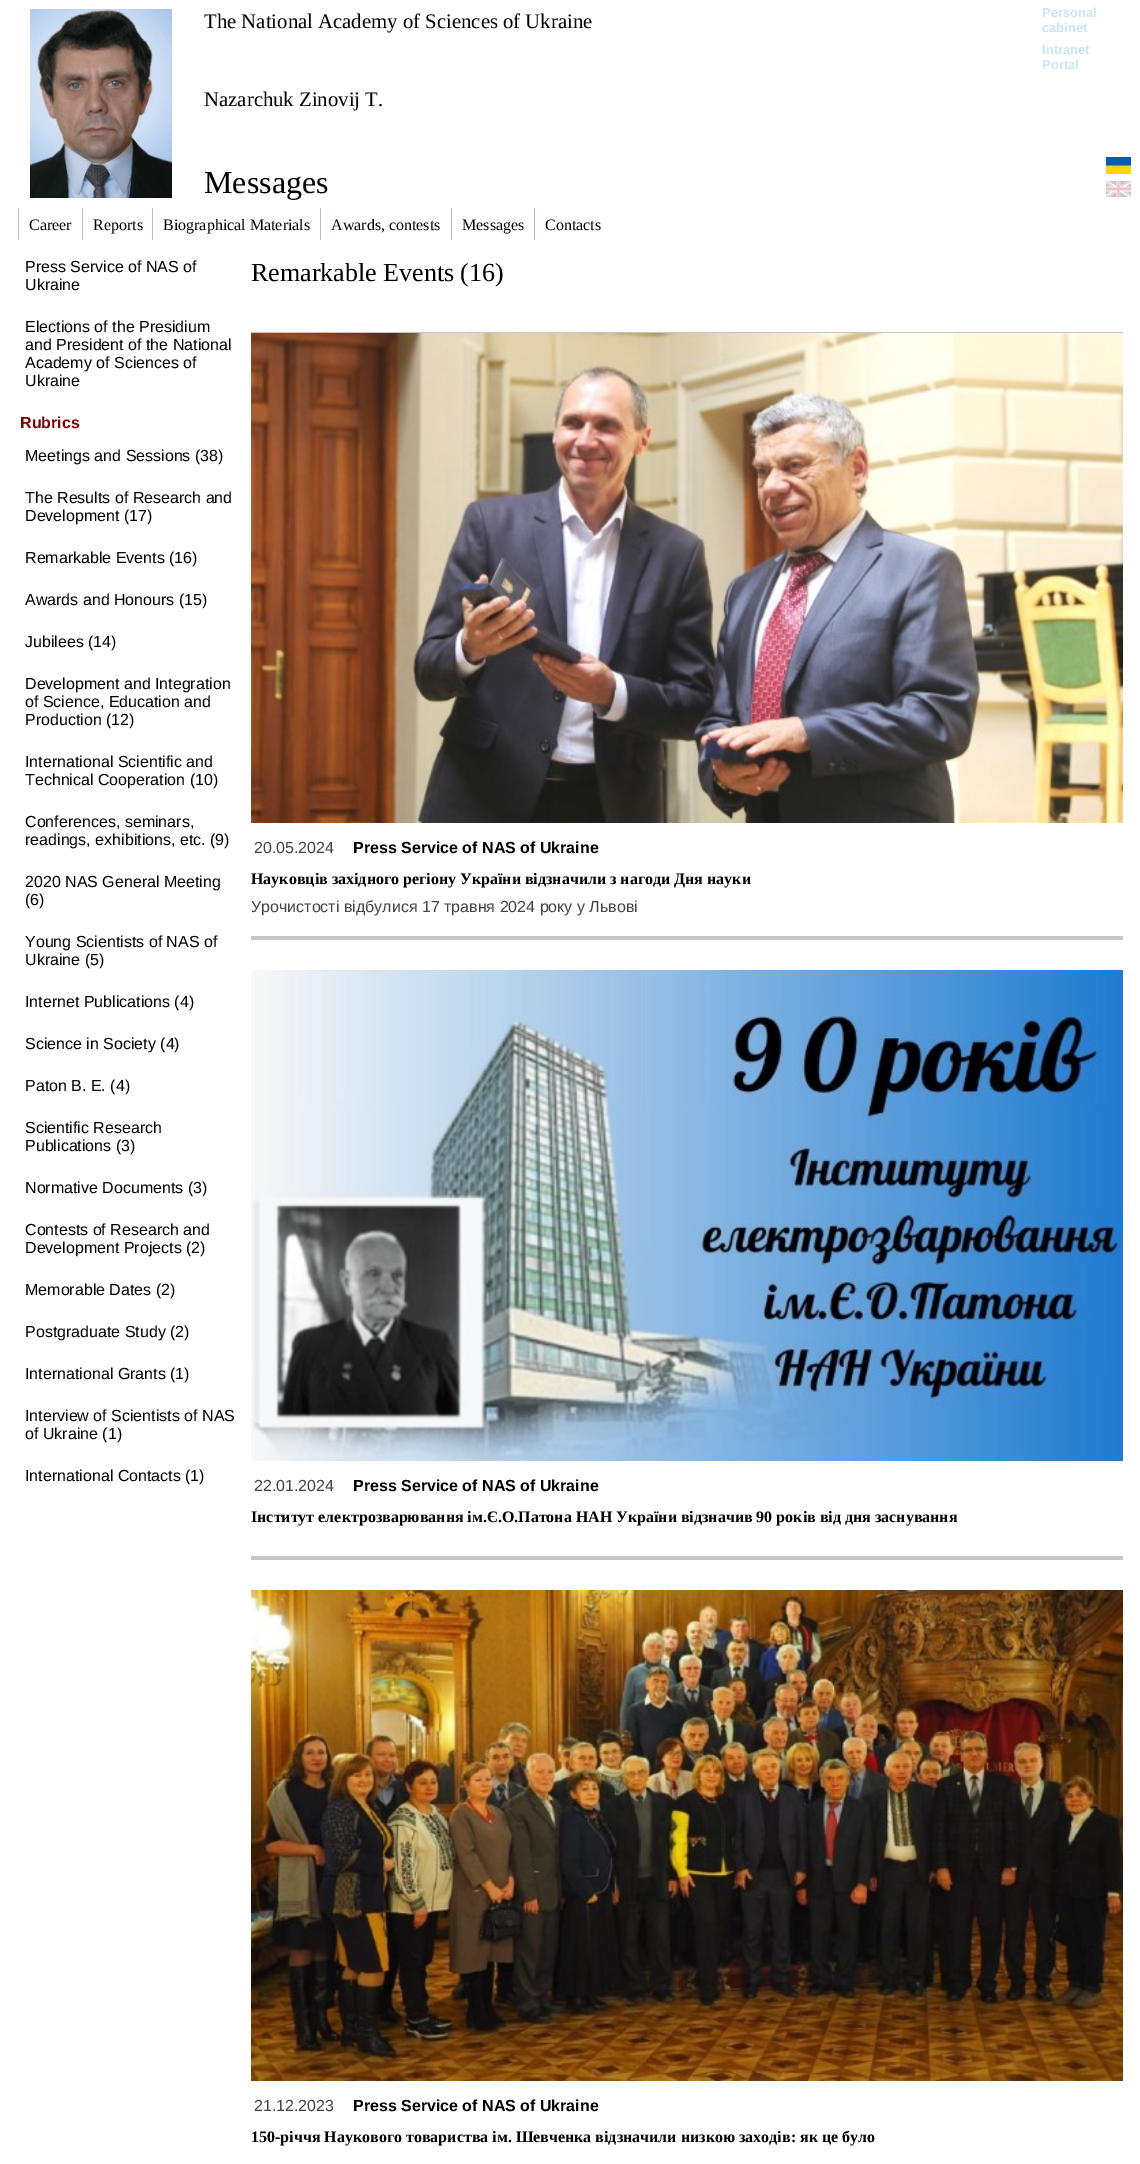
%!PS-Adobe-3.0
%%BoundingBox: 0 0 1140 2164
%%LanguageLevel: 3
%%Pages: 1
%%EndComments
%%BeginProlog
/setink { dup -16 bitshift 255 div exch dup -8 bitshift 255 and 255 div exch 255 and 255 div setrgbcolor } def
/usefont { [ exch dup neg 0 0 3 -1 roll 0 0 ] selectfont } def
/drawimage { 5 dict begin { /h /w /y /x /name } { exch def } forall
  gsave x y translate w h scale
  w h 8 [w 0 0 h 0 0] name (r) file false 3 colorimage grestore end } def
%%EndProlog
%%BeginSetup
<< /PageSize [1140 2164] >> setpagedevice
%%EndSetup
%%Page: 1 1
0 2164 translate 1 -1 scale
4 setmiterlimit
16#FFFFFF setink
0 0 1140 2164 rectfill
(img1.raw) 30 9 142 189 drawimage
/LiberationSerif-Regular 20.75 usefont
16#000000 setink
204 28 moveto (The National Academy of Sciences of Ukraine) show
/LiberationSans-Bold 13 usefont
16#CCE3F4 setink
[
    [(Personal) 1042 17]
    [(cabinet) 1042 32]
    [(Intranet) 1042 54]
    [(Portal) 1042 69]
] { aload pop moveto show } forall
/LiberationSerif-Regular 20.75 usefont
16#000000 setink
204 106 moveto (Nazarchuk Zinovij T.) show
(img2.raw) 1106 157 25 17 drawimage
(img3.raw) 1106 181 25 16 drawimage
/LiberationSerif-Regular 32 usefont
204 193 moveto (Messages) show
16#B2BDD3 setink
18 208 1 32 rectfill
/LiberationSerif-Regular 16 usefont
16#000000 setink
29 230 moveto (Career) show
16#B2BDD3 setink
82 208 1 32 rectfill
16#000000 setink
93 230 moveto (Reports) show
16#B2BDD3 setink
152 208 1 32 rectfill
16#000000 setink
163 230 moveto (Biographical Materials) show
16#B2BDD3 setink
320 208 1 32 rectfill
16#000000 setink
331 230 moveto (Awards, contests) show
16#B2BDD3 setink
451 208 1 32 rectfill
16#000000 setink
462 230 moveto (Messages) show
16#B2BDD3 setink
534 208 1 32 rectfill
16#000000 setink
545 230 moveto (Contacts) show
/LiberationSans-Regular 16 usefont
[
    [(Press Service of NAS of) 25 272]
    [(Ukraine) 25 290]
    [(Elections of the Presidium) 25 332]
    [(and President of the National) 25 350]
    [(Academy of Sciences of) 25 368]
    [(Ukraine) 25 386]
] { aload pop moveto show } forall
/LiberationSans-Bold 16 usefont
16#800000 setink
20 428 moveto (Rubrics) show
/LiberationSans-Regular 16 usefont
16#000000 setink
[
    [(Meetings and Sessions \(38\)) 25 461]
    [(The Results of Research and) 25 503]
    [(Development \(17\)) 25 521]
    [(Remarkable Events \(16\)) 25 563]
    [(Awards and Honours \(15\)) 25 605]
    [(Jubilees \(14\)) 25 647]
    [(Development and Integration) 25 689]
    [(of Science, Education and) 25 707]
    [(Production \(12\)) 25 725]
    [(International Scientific and) 25 767]
    [(Technical Cooperation \(10\)) 25 785]
    [(Conferences, seminars,) 25 827]
    [(readings, exhibitions, etc. \(9\)) 25 845]
    [(2020 NAS General Meeting) 25 887]
    [(\(6\)) 25 905]
    [(Young Scientists of NAS of) 25 947]
    [(Ukraine \(5\)) 25 965]
    [(Internet Publications \(4\)) 25 1007]
    [(Science in Society \(4\)) 25 1049]
    [(Paton B. E. \(4\)) 25 1091]
    [(Scientific Research) 25 1133]
    [(Publications \(3\)) 25 1151]
    [(Normative Documents \(3\)) 25 1193]
    [(Contests of Research and) 25 1235]
    [(Development Projects \(2\)) 25 1253]
    [(Memorable Dates \(2\)) 25 1295]
    [(Postgraduate Study \(2\)) 25 1337]
    [(International Grants \(1\)) 25 1379]
    [(Interview of Scientists of NAS) 25 1421]
    [(of Ukraine \(1\)) 25 1439]
    [(International Contacts \(1\)) 25 1481]
] { aload pop moveto show } forall
/LiberationSerif-Regular 26 usefont
251 281 moveto (Remarkable Events \(16\)) show
16#C6C6C6 setink
251 332 872 1 rectfill
(img4.raw) 251 333 872 490 drawimage
/LiberationSans-Regular 16 usefont
16#444444 setink
254 853 moveto (20.05.2024) show
/LiberationSans-Bold 16 usefont
16#000000 setink
353 853 moveto (Press Service of NAS of Ukraine) show
/LiberationSerif-Bold 16 usefont
251 884 moveto (Науковців західного регіону України відзначили з нагоди Дня науки) show
/LiberationSans-Regular 16 usefont
16#444444 setink
251 912 moveto (Урочистості відбулися 17 травня 2024 року у Львові) show
16#C6C6C6 setink
251 936 872 4 rectfill
(img5.raw) 251 970 872 491 drawimage
16#444444 setink
254 1491 moveto (22.01.2024) show
/LiberationSans-Bold 16 usefont
16#000000 setink
353 1491 moveto (Press Service of NAS of Ukraine) show
/LiberationSerif-Bold 16 usefont
251 1522 moveto (Інститут електрозварювання ім.Є.О.Патона НАН України відзначив 90 років від дня заснування) show
16#C6C6C6 setink
251 1556 872 4 rectfill
(img6.raw) 251 1590 872 491 drawimage
/LiberationSans-Regular 16 usefont
16#444444 setink
254 2111 moveto (21.12.2023) show
/LiberationSans-Bold 16 usefont
16#000000 setink
353 2111 moveto (Press Service of NAS of Ukraine) show
/LiberationSerif-Bold 16 usefont
251 2142 moveto (150-річчя Наукового товариства ім. Шевченка відзначили низкою заходів: як це було) show
showpage
%%EOF
